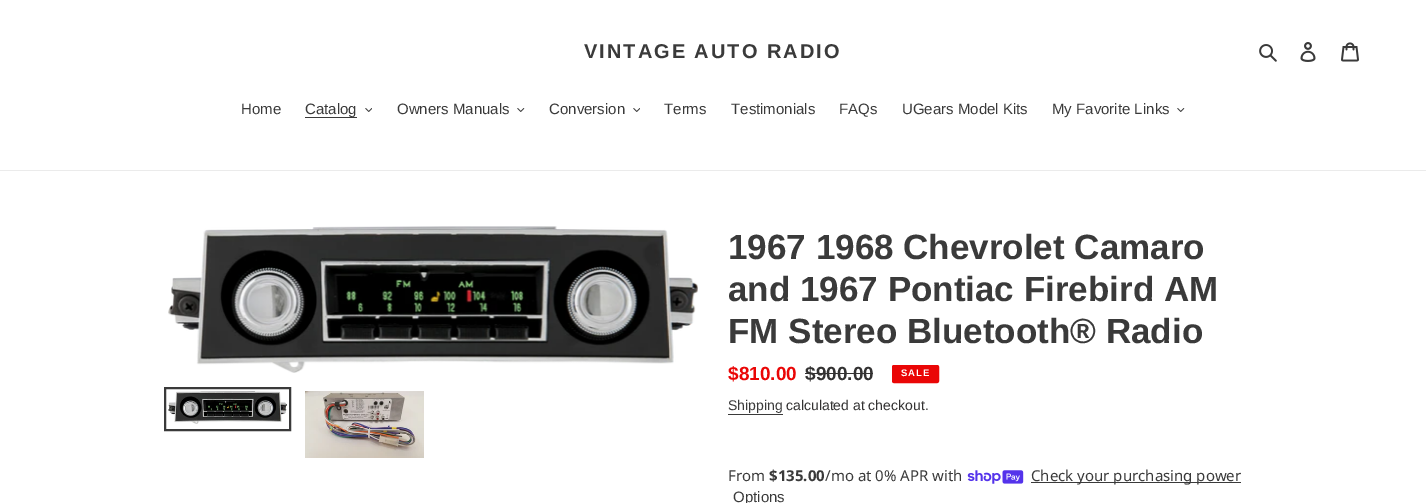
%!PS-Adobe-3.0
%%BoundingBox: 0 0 1426 503
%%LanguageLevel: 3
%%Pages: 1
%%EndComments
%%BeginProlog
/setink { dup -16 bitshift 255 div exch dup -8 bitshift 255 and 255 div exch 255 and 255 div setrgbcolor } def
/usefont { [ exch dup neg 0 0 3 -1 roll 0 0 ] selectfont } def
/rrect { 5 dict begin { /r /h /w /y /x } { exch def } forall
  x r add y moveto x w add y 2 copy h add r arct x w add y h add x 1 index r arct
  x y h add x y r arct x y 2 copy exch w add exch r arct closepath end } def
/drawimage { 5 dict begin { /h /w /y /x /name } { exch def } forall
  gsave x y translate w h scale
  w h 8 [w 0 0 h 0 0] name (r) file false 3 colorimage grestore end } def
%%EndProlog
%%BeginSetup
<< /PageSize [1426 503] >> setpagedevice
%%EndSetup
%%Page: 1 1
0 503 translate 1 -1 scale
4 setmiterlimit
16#FFFFFF setink
0 0 1426 503 rectfill
/LiberationSans-Bold 20 usefont
16#3A3A3A setink
584 58 moveto 2 0 (VINTAGE AUTO RADIO) ashow
(img1.raw) 1259 44 18 18 drawimage
(img2.raw) 1300 42 16 20 drawimage
(img3.raw) 1341 42 18 20 drawimage
16#EBEBEB setink
0 170 1426 1 rectfill
/LiberationSans-Regular 15 usefont
16#3A3A3A setink
241 114 moveto (Home) show
305 117 52 1 rectfill
305 114 moveto (Catalog) show
(img4.raw) 365 108 7 4 drawimage
397 114 moveto (Owners Manuals) show
(img5.raw) 517 108 8 4 drawimage
549 114 moveto (Conversion) show
(img4.raw) 633 108 7 4 drawimage
[
    [(Terms) 664 114]
    [(Testimonials) 731 114]
    [(FAQs) 839 114]
    [(UGears Model Kits) 902 114]
    [(My Favorite Links) 1052 114]
] { aload pop moveto show } forall
(img5.raw) 1177 108 8 4 drawimage
(img6.raw) 168 226 530 147 drawimage
2 setlinewidth
165 388 125 42 rectstroke
(img7.raw) 168 391 119 33 drawimage
(img8.raw) 305 391 119 67 drawimage
/LiberationSans-Bold 35 usefont
[
    [(1967 1968 Chevrolet Camaro) 728 259]
    [(and 1967 Pontiac Firebird AM) 728 301]
    [(FM Stereo Bluetooth® Radio) 728 343]
] { aload pop moveto show } forall
/LiberationSans-Bold 19 usefont
16#EA0606 setink
728 380 moveto ($810.00) show
16#333232 setink
805 380 moveto ($900.00) show
805 373 68 1 rectfill
16#EA0606 setink
892.5 365.5 46 17 1.5 rrect gsave fill grestore
1 setlinewidth
stroke
/LiberationSans-Bold 9.5 usefont
16#FFFFFF setink
901 376 moveto 1 0 (SALE) ashow
/LiberationSans-Regular 14 usefont
16#3A3A3A setink
728 410 moveto (Shipping) show
728 414 55 1 rectfill
16#333232 setink
786 410 moveto (calculated at checkout.) show
/NotoSans-Regular 15 usefont
16#3A3A3A setink
728 481 moveto (From) show
/NotoSans-Bold 15 usefont
769 481 moveto ($135.00) show
/NotoSans-Regular 15 usefont
825 481 moveto (/mo at 0% APR with) show
(img9.raw) 967 470 57 14 drawimage
1031 482 210 1 rectfill
1031 481 moveto (Check your purchasing power) show
/LiberationSans-Regular 15 usefont
733 502 moveto (Options) show
showpage
%%EOF
